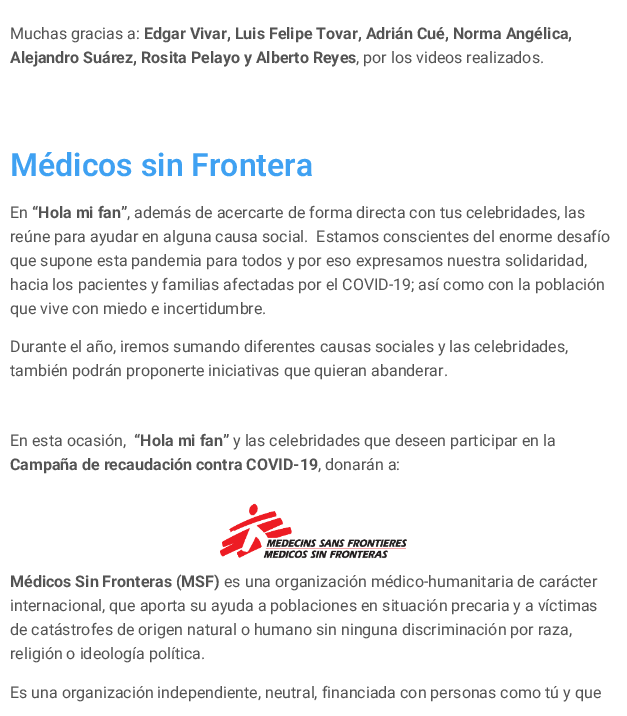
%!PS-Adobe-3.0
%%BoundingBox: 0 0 627 716
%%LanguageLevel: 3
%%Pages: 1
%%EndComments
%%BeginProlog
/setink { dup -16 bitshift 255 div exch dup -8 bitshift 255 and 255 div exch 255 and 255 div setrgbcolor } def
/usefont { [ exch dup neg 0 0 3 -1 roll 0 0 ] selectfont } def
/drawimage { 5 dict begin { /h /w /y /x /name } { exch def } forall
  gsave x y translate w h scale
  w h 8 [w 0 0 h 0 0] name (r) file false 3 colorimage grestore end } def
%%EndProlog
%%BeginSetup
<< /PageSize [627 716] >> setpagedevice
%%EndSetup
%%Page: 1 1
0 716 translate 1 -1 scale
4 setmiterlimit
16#FFFFFF setink
0 0 627 716 rectfill
/Roboto-Regular 16 usefont
16#545454 setink
10 39 moveto (Muchas gracias a:) show
/Roboto-Bold 16 usefont
144 39 moveto (Edgar Vivar, Luis Felipe Tovar, Adrián Cué, Norma Angélica,) show
10 63 moveto (Alejandro Suárez, Rosita Pelayo y Alberto Reyes) show
/Roboto-Regular 16 usefont
356 63 moveto (, por los videos realizados.) show
/Roboto-SemiBold 32 usefont
16#3FA1F2 setink
10 176 moveto (Médicos sin Frontera) show
/Roboto-Regular 16 usefont
16#545454 setink
10 218 moveto (En) show
/Roboto-Bold 16 usefont
32 218 moveto (“Hola mi fan”) show
/Roboto-Regular 16 usefont
[
    [(, además de acercarte de forma directa con tus celebridades, las) 127 218]
    [(reúne para ayudar en alguna causa social.  Estamos conscientes del enorme desafío) 10 242]
    [(que supone esta pandemia para todos y por eso expresamos nuestra solidaridad,) 10 266]
    [(hacia los pacientes y familias afectadas por el COVID-19; así como con la población) 10 290]
    [(que vive con miedo e incertidumbre.) 10 314]
    [(Durante el año, iremos sumando diferentes causas sociales y las celebridades,) 10 352]
    [(también podrán proponerte iniciativas que quieran abanderar.) 10 376]
    [(En esta ocasión,) 10 446]
] { aload pop moveto show } forall
/Roboto-Bold 16 usefont
134 446 moveto (“Hola mi fan”) show
/Roboto-Regular 16 usefont
233 446 moveto (y las celebridades que deseen participar en la) show
/Roboto-Bold 16 usefont
10 470 moveto (Campaña de recaudación contra COVID-19) show
/Roboto-Regular 16 usefont
318 470 moveto (, donarán a:) show
(img1.raw) 220 503 187 56 drawimage
/Roboto-Bold 16 usefont
10 587 moveto (Médicos Sin Fronteras \(MSF\)) show
/Roboto-Regular 16 usefont
[
    [(es una organización médico-humanitaria de carácter) 224 587]
    [(internacional, que aporta su ayuda a poblaciones en situación precaria y a víctimas) 10 611]
    [(de catástrofes de origen natural o humano sin ninguna discriminación por raza,) 10 635]
    [(religión o ideología política.) 10 659]
    [(Es una organización independiente, neutral, financiada con personas como tú y que) 10 698]
] { aload pop moveto show } forall
showpage
%%EOF
